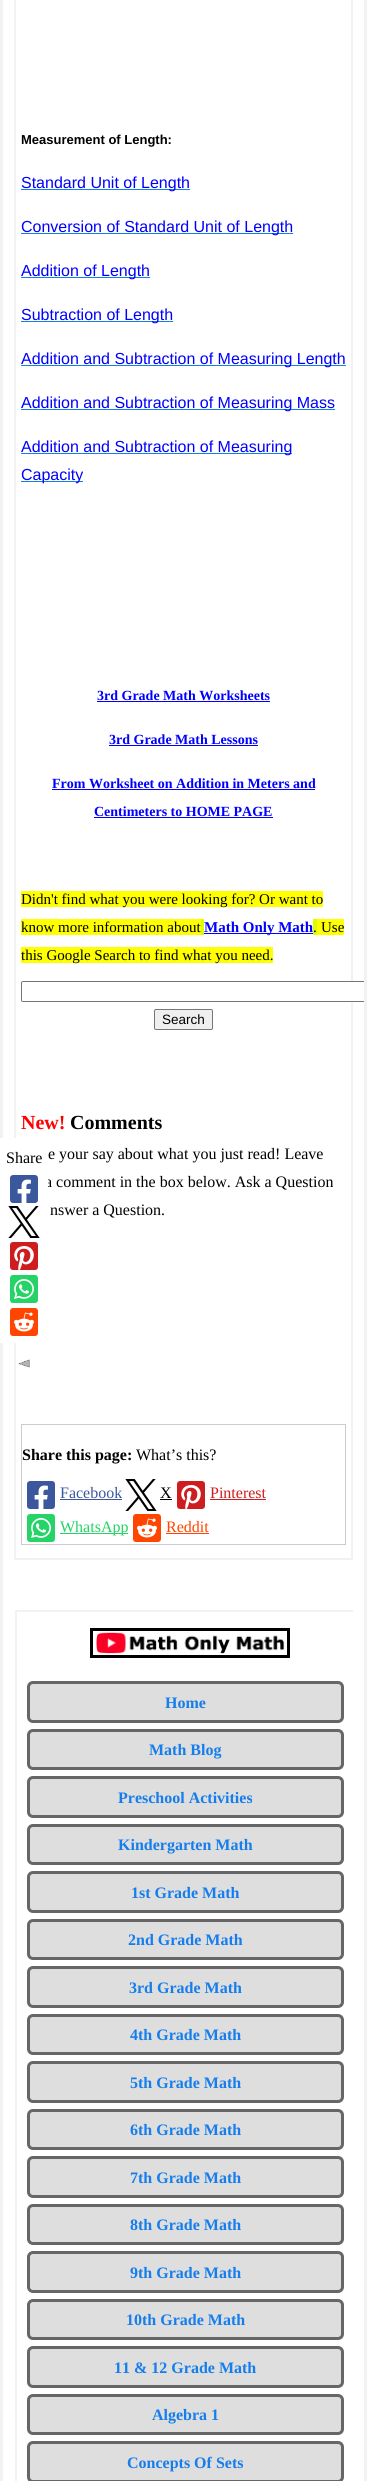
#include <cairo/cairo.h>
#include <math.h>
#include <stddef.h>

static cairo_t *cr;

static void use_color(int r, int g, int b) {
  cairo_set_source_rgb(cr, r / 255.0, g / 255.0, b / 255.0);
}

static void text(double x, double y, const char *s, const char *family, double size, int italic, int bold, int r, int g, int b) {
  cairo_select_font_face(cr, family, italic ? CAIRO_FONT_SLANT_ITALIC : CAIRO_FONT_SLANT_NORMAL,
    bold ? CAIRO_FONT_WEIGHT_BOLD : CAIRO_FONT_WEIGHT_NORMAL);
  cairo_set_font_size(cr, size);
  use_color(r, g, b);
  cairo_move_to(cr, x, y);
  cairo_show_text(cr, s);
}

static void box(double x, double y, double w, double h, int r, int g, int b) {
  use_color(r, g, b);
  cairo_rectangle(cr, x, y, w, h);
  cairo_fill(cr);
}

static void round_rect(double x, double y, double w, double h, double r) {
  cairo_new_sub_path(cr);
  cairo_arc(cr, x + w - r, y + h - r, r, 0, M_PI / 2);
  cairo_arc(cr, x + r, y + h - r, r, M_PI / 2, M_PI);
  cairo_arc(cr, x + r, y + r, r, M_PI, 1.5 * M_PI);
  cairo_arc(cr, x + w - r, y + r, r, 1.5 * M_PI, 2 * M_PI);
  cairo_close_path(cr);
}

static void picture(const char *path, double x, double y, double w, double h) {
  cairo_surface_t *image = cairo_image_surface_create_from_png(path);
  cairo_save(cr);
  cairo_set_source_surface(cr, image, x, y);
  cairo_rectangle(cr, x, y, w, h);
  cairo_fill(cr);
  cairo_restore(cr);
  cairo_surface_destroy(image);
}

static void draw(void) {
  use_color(255, 255, 255);
  cairo_paint(cr);
  box(364, 0, 3, 2481, 242, 242, 242);
  box(0, 0, 3, 2481, 242, 242, 242);
  box(351, 0, 2, 1560, 242, 242, 242);
  box(14, 1558, 339, 2, 242, 242, 242);
  box(14, 0, 2, 1560, 242, 242, 242);
  box(21, 189, 169, 1, 21, 125, 236);
  box(21, 233, 272, 1, 21, 125, 236);
  box(21, 277, 129, 1, 21, 125, 236);
  box(21, 321, 152, 1, 21, 125, 236);
  box(21, 365, 325, 1, 21, 125, 236);
  box(21, 409, 314, 1, 21, 125, 236);
  box(21, 453, 271, 1, 21, 125, 236);
  box(21, 481, 62, 1, 21, 125, 236);
  box(97, 701, 173, 1, 0, 0, 255);
  box(109, 745, 149, 1, 0, 0, 255);
  box(52, 789, 263, 1, 0, 0, 255);
  box(94, 817, 179, 1, 0, 0, 255);
  box(21, 891, 302, 16, 255, 255, 0);
  box(201, 919, 3, 16, 217, 255, 0);
  box(21, 919, 180, 16, 255, 255, 0);
  box(313, 919, 4, 16, 217, 255, 0);
  box(204, 933, 109, 1, 0, 0, 255);
  box(317, 919, 27, 16, 255, 255, 0);
  box(21, 947, 252, 16, 255, 255, 0);
  use_color(255, 255, 255);
  cairo_new_path(cr);
  cairo_move_to(cr, 23, 981);
  cairo_line_to(cr, 364, 981);
  cairo_line_to(cr, 364, 1002);
  cairo_line_to(cr, 23, 1002);
  cairo_curve_to(cr, 22, 1002, 21, 1001, 21, 1000);
  cairo_line_to(cr, 21, 983);
  cairo_curve_to(cr, 21, 982, 22, 981, 23, 981);
  cairo_close_path(cr);
  cairo_fill(cr);
  cairo_save(cr);
  cairo_rectangle(cr, 3, 0, 361, 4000);
  cairo_clip(cr);
  round_rect(21.5, 981.5, 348, 20, 1.5);
  use_color(118, 118, 118);
  cairo_set_line_width(cr, 1);
  cairo_stroke(cr);
  cairo_restore(cr);
  use_color(239, 239, 239);
  round_rect(154.5, 1009.5, 58, 20, 1.5);
  cairo_fill_preserve(cr);
  use_color(118, 118, 118);
  cairo_set_line_width(cr, 1);
  cairo_stroke(cr);
  cairo_rectangle(cr, 21.5, 1424.5, 324, 120);
  use_color(204, 204, 204);
  cairo_stroke(cr);
  picture("img_06.png", 18, 1359, 12, 9);
  picture("img_07.png", 27, 1481, 28, 28);
  box(60, 1499, 62, 1, 59, 87, 157);
  picture("img_08.png", 125, 1479, 32, 32);
  box(160, 1499, 12, 1, 0, 0, 0);
  picture("img_09.png", 177, 1481, 28, 28);
  box(210, 1499, 56, 1, 205, 29, 31);
  picture("img_10.png", 27, 1514, 28, 28);
  box(60, 1533, 68, 1, 37, 211, 102);
  picture("img_11.png", 133, 1514, 28, 28);
  box(166, 1533, 43, 1, 255, 69, 0);
  box(15, 1610, 338, 2, 242, 242, 242);
  box(15, 1610, 2, 871, 242, 242, 242);
  cairo_rectangle(cr, 91.5, 1629.5, 197, 27);
  use_color(0, 0, 0);
  cairo_set_line_width(cr, 3);
  cairo_stroke(cr);
  picture("img_12.png", 96, 1632, 189, 22);
  use_color(222, 222, 222);
  round_rect(28.5, 1682.5, 314, 39, 4.5);
  cairo_fill_preserve(cr);
  use_color(102, 102, 102);
  cairo_stroke(cr);
  use_color(222, 222, 222);
  round_rect(28.5, 1730.5, 314, 38, 4.5);
  cairo_fill_preserve(cr);
  use_color(102, 102, 102);
  cairo_stroke(cr);
  use_color(222, 222, 222);
  round_rect(28.5, 1777.5, 314, 39, 4.5);
  cairo_fill_preserve(cr);
  use_color(102, 102, 102);
  cairo_stroke(cr);
  use_color(222, 222, 222);
  round_rect(28.5, 1825.5, 314, 38, 4.5);
  cairo_fill_preserve(cr);
  use_color(102, 102, 102);
  cairo_stroke(cr);
  use_color(222, 222, 222);
  round_rect(28.5, 1872.5, 314, 39, 4.5);
  cairo_fill_preserve(cr);
  use_color(102, 102, 102);
  cairo_stroke(cr);
  use_color(222, 222, 222);
  round_rect(28.5, 1920.5, 314, 38, 4.5);
  cairo_fill_preserve(cr);
  use_color(102, 102, 102);
  cairo_stroke(cr);
  use_color(222, 222, 222);
  round_rect(28.5, 1967.5, 314, 39, 4.5);
  cairo_fill_preserve(cr);
  use_color(102, 102, 102);
  cairo_stroke(cr);
  use_color(222, 222, 222);
  round_rect(28.5, 2015.5, 314, 38, 4.5);
  cairo_fill_preserve(cr);
  use_color(102, 102, 102);
  cairo_stroke(cr);
  use_color(222, 222, 222);
  round_rect(28.5, 2062.5, 314, 39, 4.5);
  cairo_fill_preserve(cr);
  use_color(102, 102, 102);
  cairo_stroke(cr);
  use_color(222, 222, 222);
  round_rect(28.5, 2110.5, 314, 38, 4.5);
  cairo_fill_preserve(cr);
  use_color(102, 102, 102);
  cairo_stroke(cr);
  use_color(222, 222, 222);
  round_rect(28.5, 2157.5, 314, 39, 4.5);
  cairo_fill_preserve(cr);
  use_color(102, 102, 102);
  cairo_stroke(cr);
  use_color(222, 222, 222);
  round_rect(28.5, 2205.5, 314, 38, 4.5);
  cairo_fill_preserve(cr);
  use_color(102, 102, 102);
  cairo_stroke(cr);
  use_color(222, 222, 222);
  round_rect(28.5, 2252.5, 314, 39, 4.5);
  cairo_fill_preserve(cr);
  use_color(102, 102, 102);
  cairo_stroke(cr);
  use_color(222, 222, 222);
  round_rect(28.5, 2300.5, 314, 38, 4.5);
  cairo_fill_preserve(cr);
  use_color(102, 102, 102);
  cairo_stroke(cr);
  use_color(222, 222, 222);
  round_rect(28.5, 2347.5, 314, 39, 4.5);
  cairo_fill_preserve(cr);
  use_color(102, 102, 102);
  cairo_stroke(cr);
  use_color(222, 222, 222);
  round_rect(28.5, 2395.5, 314, 38, 4.5);
  cairo_fill_preserve(cr);
  use_color(102, 102, 102);
  cairo_stroke(cr);
  use_color(222, 222, 222);
  round_rect(28.5, 2442.5, 314, 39, 4.5);
  cairo_fill_preserve(cr);
  use_color(102, 102, 102);
  cairo_stroke(cr);
  text(21, 144, "Measurement of Length:", "Liberation Sans", 13, 0, 1, 0, 0, 0);
  text(21, 188, "Standard Unit of Length", "Liberation Sans", 16, 0, 0, 0, 0, 255);
  text(21, 232, "Conversion of Standard Unit of Length", "Liberation Sans", 16, 0, 0, 0, 0, 255);
  text(21, 276, "Addition of Length", "Liberation Sans", 16, 0, 0, 0, 0, 255);
  text(21, 320, "Subtraction of Length", "Liberation Sans", 16, 0, 0, 0, 0, 255);
  text(21, 364, "Addition and Subtraction of Measuring Length", "Liberation Sans", 16, 0, 0, 0, 0, 255);
  text(21, 408, "Addition and Subtraction of Measuring Mass", "Liberation Sans", 16, 0, 0, 0, 0, 255);
  text(21, 452, "Addition and Subtraction of Measuring", "Liberation Sans", 16, 0, 0, 0, 0, 255);
  text(21, 480, "Capacity", "Liberation Sans", 16, 0, 0, 0, 0, 255);
  text(97, 700, "3rd Grade Math Worksheets", "Liberation Serif", 14, 0, 1, 0, 0, 255);
  text(109, 744, "3rd Grade Math Lessons", "Liberation Serif", 14, 0, 1, 0, 0, 255);
  text(52, 788, "From Worksheet on Addition in Meters and", "Liberation Serif", 14, 0, 1, 0, 0, 255);
  text(94, 816, "Centimeters to HOME PAGE", "Liberation Serif", 14, 0, 1, 0, 0, 255);
  text(21, 904, "Didn't find what you were looking for? Or want to", "Liberation Serif", 15, 0, 0, 0, 0, 0);
  text(21, 932, "know more information about", "Liberation Serif", 15, 0, 0, 0, 0, 0);
  text(204, 932, "Math Only Math", "Liberation Serif", 15, 0, 1, 0, 0, 255);
  text(313, 932, ".", "Liberation Serif", 15, 0, 0, 0, 0, 0);
  text(321, 932, "Use", "Liberation Serif", 15, 0, 0, 0, 0, 0);
  text(21, 960, "this Google Search to find what you need.", "Liberation Serif", 15, 0, 0, 0, 0, 0);
  text(162, 1024, "Search", "Liberation Sans", 13.5, 0, 0, 0, 0, 0);
  text(21, 1129, "New!", "Liberation Serif", 20, 0, 1, 255, 0, 0);
  text(70, 1129, "Comments", "Liberation Serif", 20, 0, 1, 0, 0, 0);
  text(48, 1159, "e your say about what you just read! Leave", "Liberation Serif", 16, 0, 0, 0, 0, 0);
  text(45, 1187, "a comment in the box below. Ask a Question", "Liberation Serif", 16, 0, 0, 0, 0, 0);
  text(50, 1215, "nswer a Question.", "Liberation Serif", 16, 0, 0, 0, 0, 0);
  use_color(255, 255, 255);
  cairo_new_path(cr);
  cairo_move_to(cr, 0, 1138);
  cairo_line_to(cr, 43, 1138);
  cairo_curve_to(cr, 46, 1138, 48, 1140, 48, 1143);
  cairo_line_to(cr, 48, 1338);
  cairo_curve_to(cr, 48, 1341, 46, 1343, 43, 1343);
  cairo_line_to(cr, 0, 1343);
  cairo_close_path(cr);
  cairo_fill(cr);
  text(6, 1163, "Share", "Liberation Serif", 16, 0, 0, 0, 0, 0);
  picture("img_01.png", 10, 1175, 28, 28);
  picture("img_02.png", 8, 1206, 32, 32);
  picture("img_03.png", 10, 1242, 28, 28);
  picture("img_04.png", 10, 1275, 28, 28);
  picture("img_05.png", 10, 1308, 28, 28);
  text(22, 1460, "Share this page:", "Liberation Serif", 16, 0, 1, 0, 0, 0);
  text(136, 1460, "What’s this?", "Liberation Serif", 16, 0, 0, 0, 0, 0);
  text(60, 1498, "Facebook", "Liberation Serif", 16, 0, 0, 59, 87, 157);
  text(160, 1498, "X", "Liberation Serif", 16, 0, 0, 0, 0, 0);
  text(210, 1498, "Pinterest", "Liberation Serif", 16, 0, 0, 205, 29, 31);
  text(60, 1532, "WhatsApp", "Liberation Serif", 16, 0, 0, 37, 211, 102);
  text(166, 1532, "Reddit", "Liberation Serif", 16, 0, 0, 255, 69, 0);
  text(165, 1708, "Home", "Liberation Serif", 16, 0, 1, 21, 125, 236);
  text(149, 1755, "Math Blog", "Liberation Serif", 16, 0, 1, 21, 125, 236);
  text(118, 1803, "Preschool Activities", "Liberation Serif", 16, 0, 1, 21, 125, 236);
  text(118, 1850, "Kindergarten Math", "Liberation Serif", 16, 0, 1, 21, 125, 236);
  text(131, 1898, "1st Grade Math", "Liberation Serif", 16, 0, 1, 21, 125, 236);
  text(128, 1945, "2nd Grade Math", "Liberation Serif", 16, 0, 1, 21, 125, 236);
  text(129, 1993, "3rd Grade Math", "Liberation Serif", 16, 0, 1, 21, 125, 236);
  text(130, 2040, "4th Grade Math", "Liberation Serif", 16, 0, 1, 21, 125, 236);
  text(130, 2088, "5th Grade Math", "Liberation Serif", 16, 0, 1, 21, 125, 236);
  text(130, 2135, "6th Grade Math", "Liberation Serif", 16, 0, 1, 21, 125, 236);
  text(130, 2183, "7th Grade Math", "Liberation Serif", 16, 0, 1, 21, 125, 236);
  text(130, 2230, "8th Grade Math", "Liberation Serif", 16, 0, 1, 21, 125, 236);
  text(130, 2278, "9th Grade Math", "Liberation Serif", 16, 0, 1, 21, 125, 236);
  text(126, 2325, "10th Grade Math", "Liberation Serif", 16, 0, 1, 21, 125, 236);
  text(114, 2373, "11 & 12 Grade Math", "Liberation Serif", 16, 0, 1, 21, 125, 236);
  text(152, 2420, "Algebra 1", "Liberation Serif", 16, 0, 1, 21, 125, 236);
  text(127, 2468, "Concepts Of Sets", "Liberation Serif", 16, 0, 1, 21, 125, 236);
}

int main(void) {
  cairo_surface_t *surface = cairo_image_surface_create(CAIRO_FORMAT_RGB24, 367, 2481);
  cr = cairo_create(surface);
  cairo_font_options_t *options = cairo_font_options_create();
  cairo_font_options_set_hint_metrics(options, CAIRO_HINT_METRICS_OFF);
  cairo_font_options_set_hint_style(options, CAIRO_HINT_STYLE_NONE);
  cairo_set_font_options(cr, options);
  cairo_set_miter_limit(cr, 4);
  draw();
  cairo_surface_write_to_png(surface, "out.png");
  cairo_font_options_destroy(options);
  cairo_destroy(cr);
  cairo_surface_destroy(surface);
  return 0;
}
